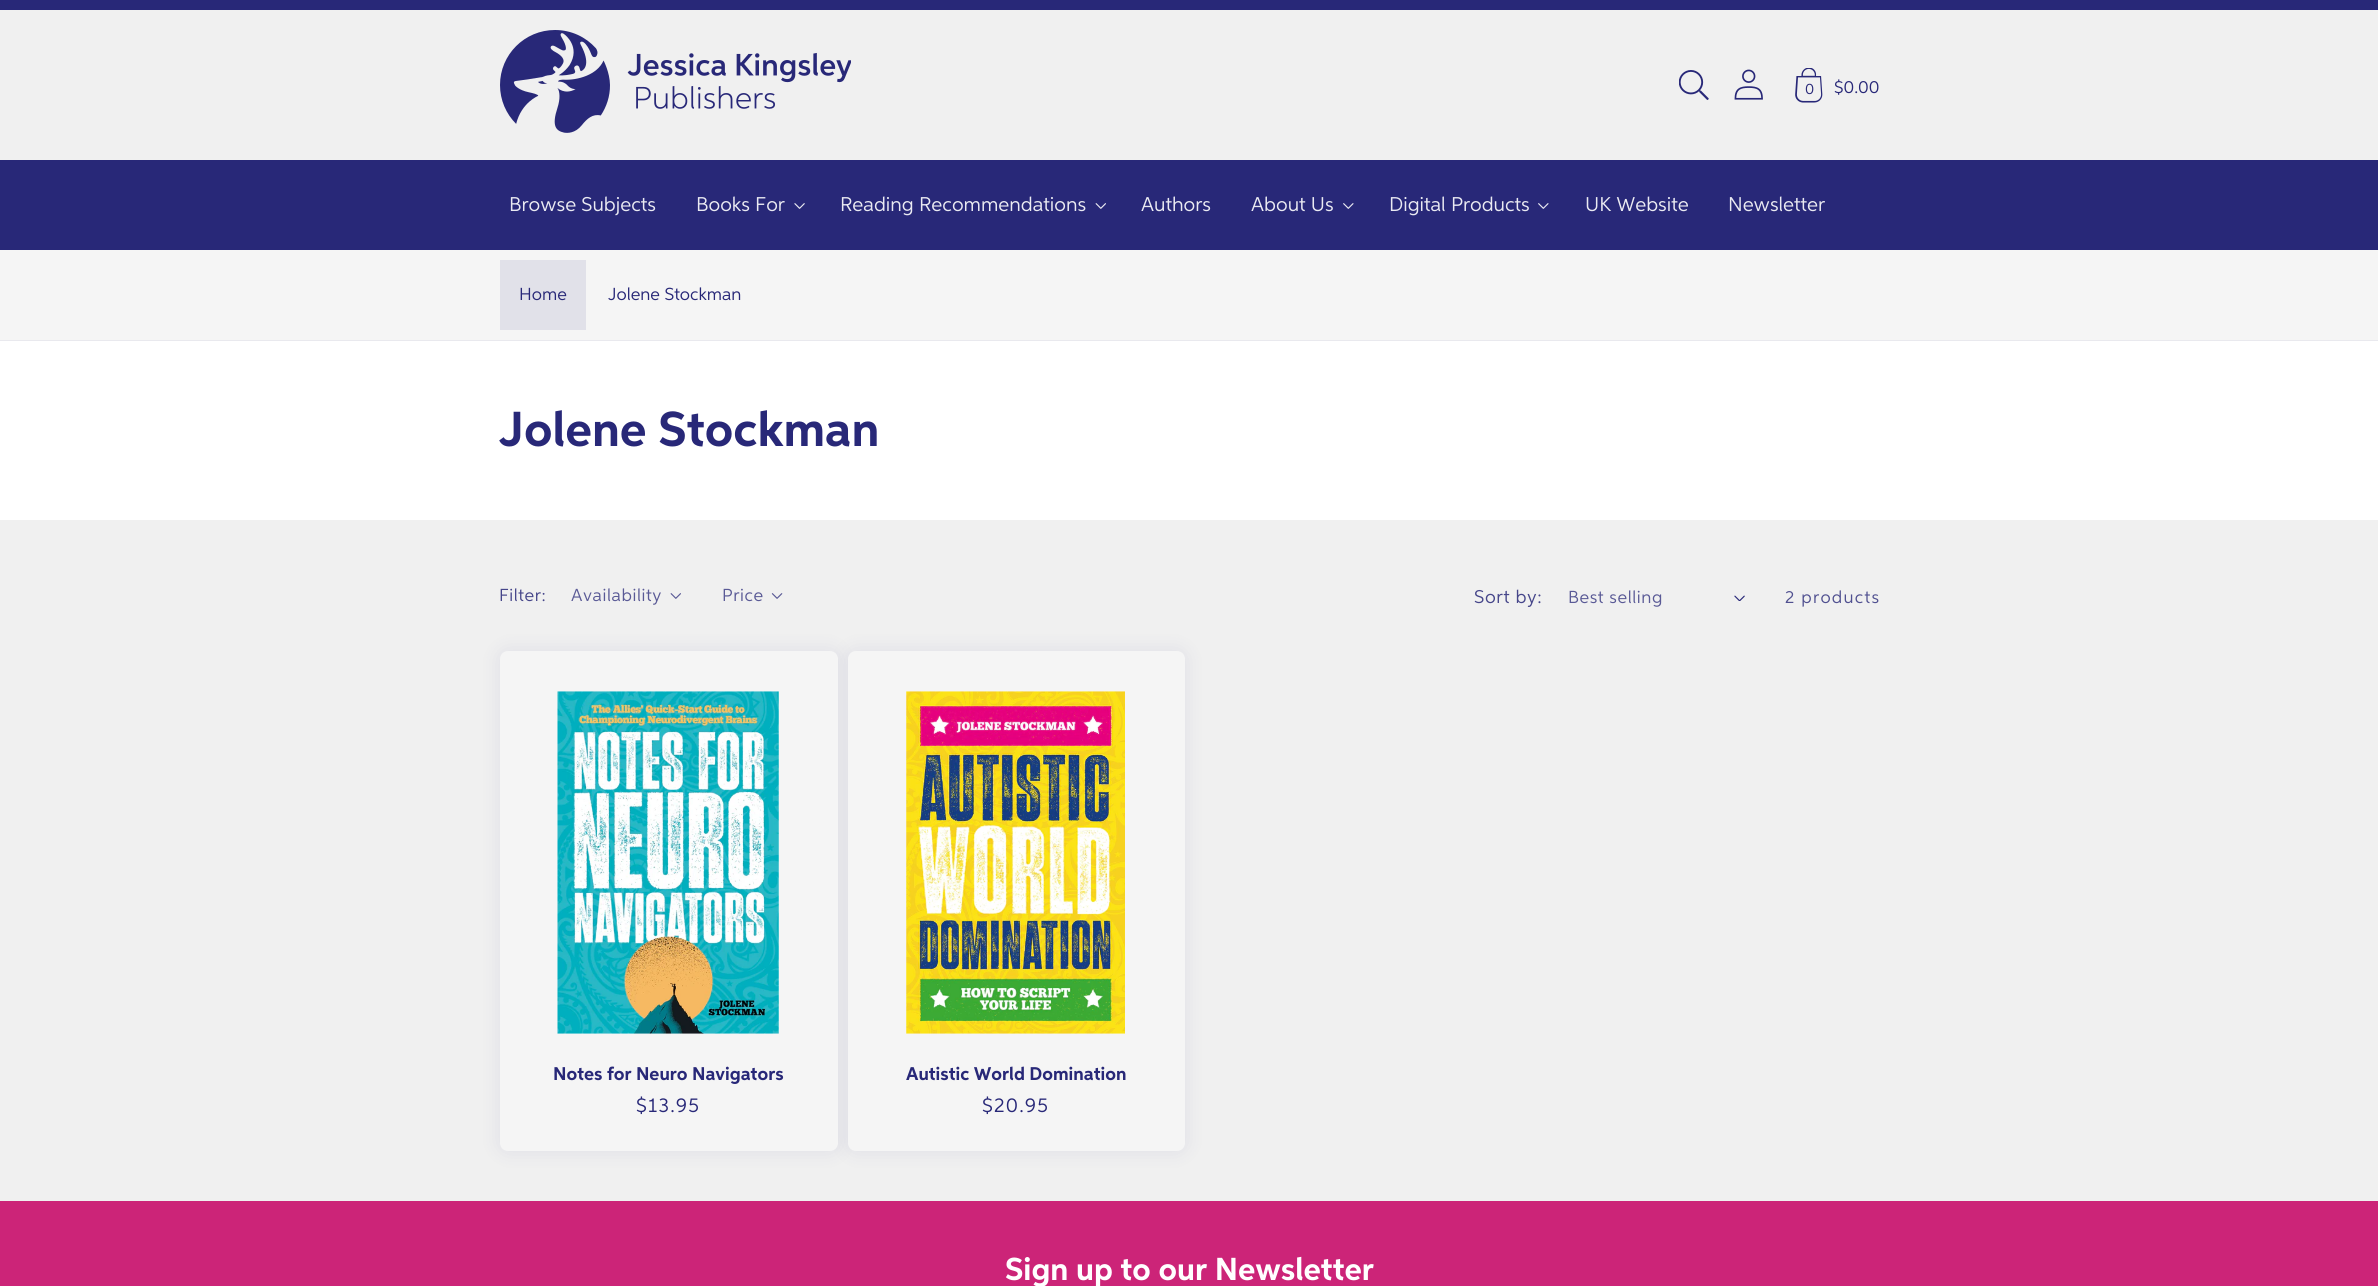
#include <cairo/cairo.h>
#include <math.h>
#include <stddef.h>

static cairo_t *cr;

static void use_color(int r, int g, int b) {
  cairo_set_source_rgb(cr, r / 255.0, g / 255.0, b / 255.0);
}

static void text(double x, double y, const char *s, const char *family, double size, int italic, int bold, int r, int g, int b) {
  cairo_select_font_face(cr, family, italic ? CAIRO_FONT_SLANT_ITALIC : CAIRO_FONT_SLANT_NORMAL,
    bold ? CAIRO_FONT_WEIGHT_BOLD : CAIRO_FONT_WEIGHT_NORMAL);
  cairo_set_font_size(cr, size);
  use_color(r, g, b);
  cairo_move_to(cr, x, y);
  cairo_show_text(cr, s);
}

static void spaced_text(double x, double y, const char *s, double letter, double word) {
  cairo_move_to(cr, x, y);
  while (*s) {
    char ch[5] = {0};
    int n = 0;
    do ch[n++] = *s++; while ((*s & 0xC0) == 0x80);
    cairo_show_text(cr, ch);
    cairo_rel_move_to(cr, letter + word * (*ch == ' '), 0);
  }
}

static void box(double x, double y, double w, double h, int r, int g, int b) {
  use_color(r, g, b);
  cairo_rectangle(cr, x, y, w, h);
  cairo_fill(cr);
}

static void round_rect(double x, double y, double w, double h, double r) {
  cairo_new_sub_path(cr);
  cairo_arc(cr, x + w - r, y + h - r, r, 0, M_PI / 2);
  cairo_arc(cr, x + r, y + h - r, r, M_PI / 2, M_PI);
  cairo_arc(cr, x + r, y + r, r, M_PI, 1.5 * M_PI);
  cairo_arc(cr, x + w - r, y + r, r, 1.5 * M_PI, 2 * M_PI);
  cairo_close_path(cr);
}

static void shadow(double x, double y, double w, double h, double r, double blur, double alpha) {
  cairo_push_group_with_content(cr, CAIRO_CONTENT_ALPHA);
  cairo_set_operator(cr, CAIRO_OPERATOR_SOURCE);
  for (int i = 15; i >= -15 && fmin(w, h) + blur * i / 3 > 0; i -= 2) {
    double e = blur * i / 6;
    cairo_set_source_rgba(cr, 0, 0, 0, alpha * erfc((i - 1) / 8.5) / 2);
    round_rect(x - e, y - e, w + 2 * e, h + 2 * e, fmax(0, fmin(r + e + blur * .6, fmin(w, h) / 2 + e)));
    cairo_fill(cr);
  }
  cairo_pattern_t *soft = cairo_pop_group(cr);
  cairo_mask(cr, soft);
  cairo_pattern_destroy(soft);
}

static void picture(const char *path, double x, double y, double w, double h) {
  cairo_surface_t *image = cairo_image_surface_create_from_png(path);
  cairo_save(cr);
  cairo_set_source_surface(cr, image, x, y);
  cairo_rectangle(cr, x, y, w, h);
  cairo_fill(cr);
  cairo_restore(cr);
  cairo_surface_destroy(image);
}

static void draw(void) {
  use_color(240, 240, 240);
  cairo_paint(cr);
  box(0, 0, 2378, 10, 40, 40, 120);
  picture("img_01.png", 500, 30, 351, 103);
  picture("img_02.png", 1679, 70, 30, 30);
  picture("img_03.png", 1734, 69, 29, 31);
  picture("img_04.png", 1795, 68, 28, 35);
  box(0, 160, 2378, 90, 40, 40, 120);
  picture("img_05.png", 794, 203, 11, 6);
  picture("img_06.png", 1095, 203, 11, 6);
  picture("img_07.png", 1343, 203, 11, 6);
  picture("img_07.png", 1538, 203, 11, 6);
  box(0, 250, 2378, 90, 245, 245, 245);
  box(0, 340, 2378, 1, 233, 233, 238);
  box(500, 260, 86, 70, 225, 225, 233);
  box(0, 341, 2378, 179, 255, 255, 255);
  picture("img_08.png", 670, 593, 11, 6);
  picture("img_09.png", 771, 593, 12, 6);
  picture("img_10.png", 1734, 595, 11, 6);
  use_color(40, 40, 120);
  shadow(500, 651, 338, 500, 8, 9.5, 0.1);
  shadow(848, 651, 337, 500, 8, 9.5, 0.1);
  use_color(245, 245, 245);
  round_rect(500, 651, 338, 500, 8);
  cairo_fill(cr);
  picture("img_11.png", 557, 691, 222, 343);
  round_rect(848, 651, 337, 500, 8);
  cairo_fill(cr);
  picture("img_12.png", 906, 691, 219, 343);
  box(0, 1201, 2378, 85, 204, 36, 120);
  text(1805, 94, "0", "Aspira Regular", 15, 0, 0, 40, 40, 120);
  text(1834, 93, "$0.00", "Aspira Regular", 17.5, 0, 0, 40, 40, 120);
  text(509, 211, "Browse Subjects", "Aspira Regular", 20, 0, 0, 234, 234, 242);
  text(696, 211, "Books For", "Aspira Regular", 20, 0, 0, 234, 234, 242);
  text(840, 211, "Reading Recommendations", "Aspira Regular", 20, 0, 0, 234, 234, 242);
  text(1141, 211, "Authors", "Aspira Regular", 20, 0, 0, 234, 234, 242);
  text(1251, 211, "About Us", "Aspira Regular", 20, 0, 0, 234, 234, 242);
  text(1389, 211, "Digital Products", "Aspira Regular", 20, 0, 0, 234, 234, 242);
  text(1585, 211, "UK Website", "Aspira Regular", 20, 0, 0, 234, 234, 242);
  text(1728, 211, "Newsletter", "Aspira Regular", 20, 0, 0, 234, 234, 242);
  text(519, 300, "Home", "Aspira Regular", 17.5, 0, 0, 40, 40, 120);
  text(608, 300, "Jolene Stockman", "Aspira Regular", 17.5, 0, 0, 40, 40, 120);
  text(499, 446, "Jolene Stockman", "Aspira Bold", 49.25, 0, 1, 40, 40, 120);
  cairo_select_font_face(cr, "Aspira Regular", CAIRO_FONT_SLANT_NORMAL, CAIRO_FONT_WEIGHT_NORMAL);
  cairo_set_font_size(cr, 17.5);
  use_color(70, 70, 138);
  spaced_text(499, 601, "Filter:", 0.6, 0);
  use_color(90, 90, 150);
  spaced_text(571, 601, "Availability", 0.6, 0);
  spaced_text(722, 601, "Price", 0.6, 0);
  cairo_set_font_size(cr, 18.5);
  use_color(70, 70, 138);
  spaced_text(1474, 603, "Sort by:", 0.6, 0);
  cairo_set_font_size(cr, 17.5);
  use_color(90, 90, 150);
  spaced_text(1568, 603, "Best selling", 0.6, 0);
  use_color(80, 80, 144);
  spaced_text(1785, 603, "2 products", 1.25, 0);
  text(553, 1080, "Notes for Neuro Navigators", "Aspira Bold", 18.5, 0, 1, 40, 40, 120);
  cairo_select_font_face(cr, "Aspira Regular", CAIRO_FONT_SLANT_NORMAL, CAIRO_FONT_WEIGHT_NORMAL);
  cairo_set_font_size(cr, 20);
  spaced_text(636, 1112, "$13.95", 1.25, 0);
  text(906, 1080, "Autistic World Domination", "Aspira Bold", 18.5, 0, 1, 40, 40, 120);
  cairo_select_font_face(cr, "Aspira Regular", CAIRO_FONT_SLANT_NORMAL, CAIRO_FONT_WEIGHT_NORMAL);
  cairo_set_font_size(cr, 20);
  spaced_text(982, 1112, "$20.95", 1.25, 0);
  text(1005, 1280, "Sign up to our Newsletter", "Aspira Bold", 31.9, 0, 1, 255, 255, 255);
}

int main(void) {
  cairo_surface_t *surface = cairo_image_surface_create(CAIRO_FORMAT_RGB24, 2378, 1286);
  cr = cairo_create(surface);
  cairo_font_options_t *options = cairo_font_options_create();
  cairo_font_options_set_hint_metrics(options, CAIRO_HINT_METRICS_OFF);
  cairo_font_options_set_hint_style(options, CAIRO_HINT_STYLE_NONE);
  cairo_set_font_options(cr, options);
  cairo_set_miter_limit(cr, 4);
  draw();
  cairo_surface_write_to_png(surface, "out.png");
  cairo_font_options_destroy(options);
  cairo_destroy(cr);
  cairo_surface_destroy(surface);
  return 0;
}
